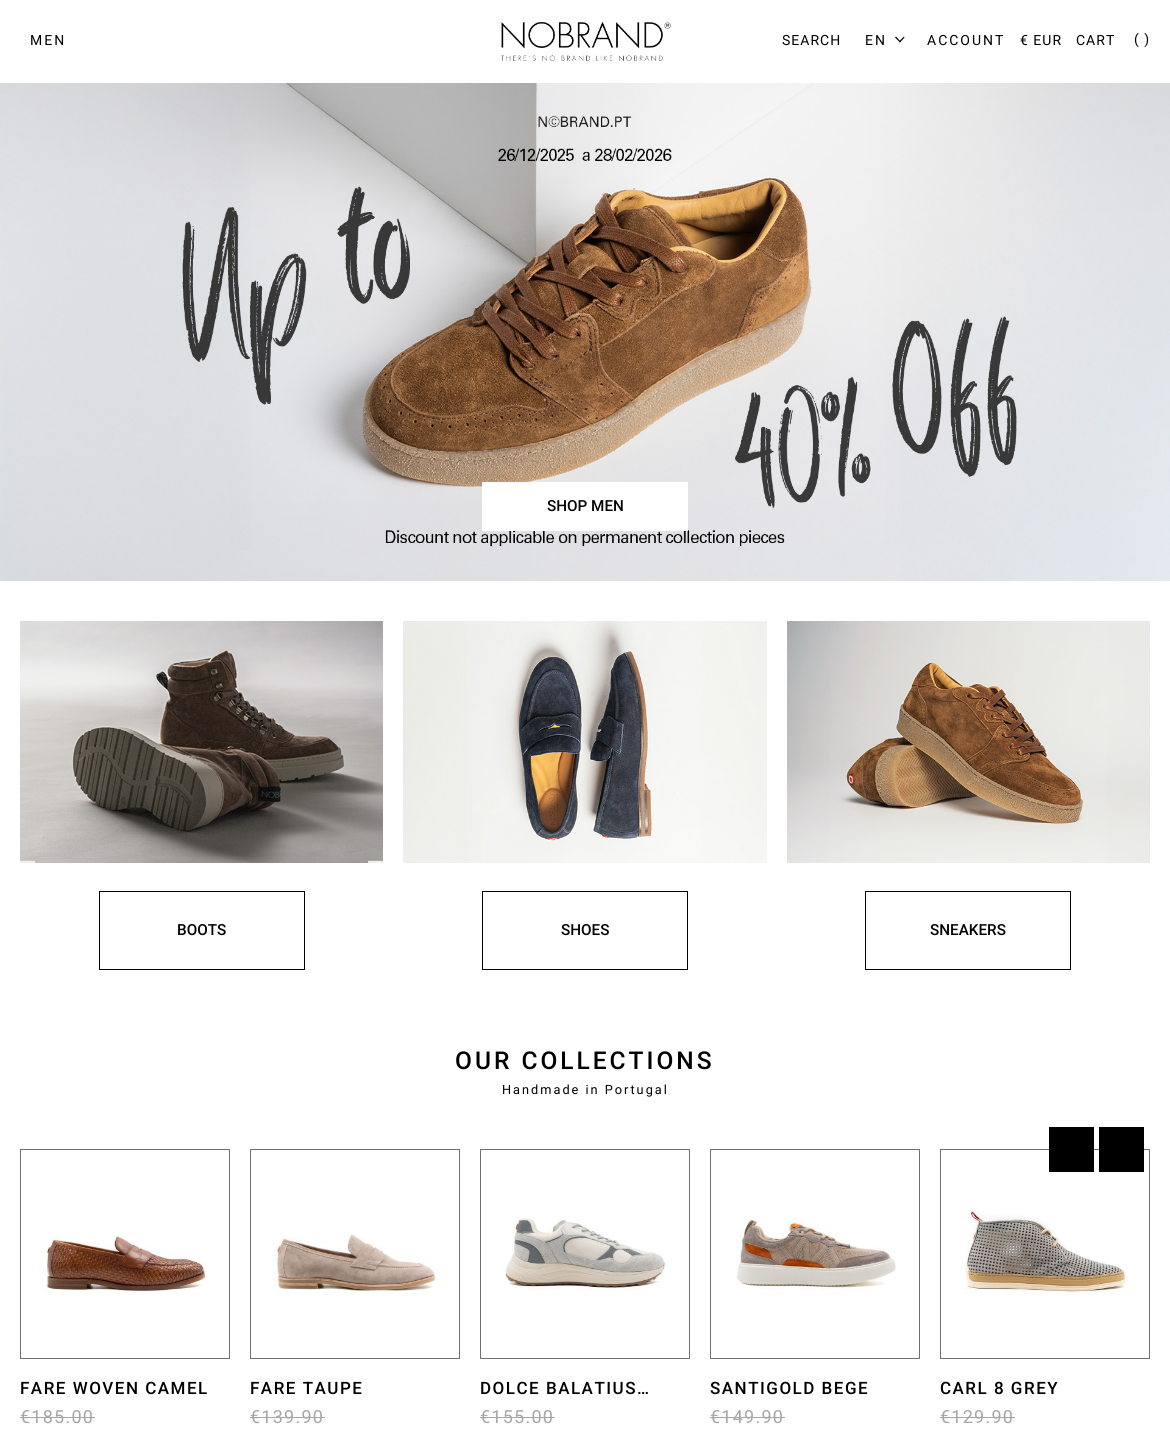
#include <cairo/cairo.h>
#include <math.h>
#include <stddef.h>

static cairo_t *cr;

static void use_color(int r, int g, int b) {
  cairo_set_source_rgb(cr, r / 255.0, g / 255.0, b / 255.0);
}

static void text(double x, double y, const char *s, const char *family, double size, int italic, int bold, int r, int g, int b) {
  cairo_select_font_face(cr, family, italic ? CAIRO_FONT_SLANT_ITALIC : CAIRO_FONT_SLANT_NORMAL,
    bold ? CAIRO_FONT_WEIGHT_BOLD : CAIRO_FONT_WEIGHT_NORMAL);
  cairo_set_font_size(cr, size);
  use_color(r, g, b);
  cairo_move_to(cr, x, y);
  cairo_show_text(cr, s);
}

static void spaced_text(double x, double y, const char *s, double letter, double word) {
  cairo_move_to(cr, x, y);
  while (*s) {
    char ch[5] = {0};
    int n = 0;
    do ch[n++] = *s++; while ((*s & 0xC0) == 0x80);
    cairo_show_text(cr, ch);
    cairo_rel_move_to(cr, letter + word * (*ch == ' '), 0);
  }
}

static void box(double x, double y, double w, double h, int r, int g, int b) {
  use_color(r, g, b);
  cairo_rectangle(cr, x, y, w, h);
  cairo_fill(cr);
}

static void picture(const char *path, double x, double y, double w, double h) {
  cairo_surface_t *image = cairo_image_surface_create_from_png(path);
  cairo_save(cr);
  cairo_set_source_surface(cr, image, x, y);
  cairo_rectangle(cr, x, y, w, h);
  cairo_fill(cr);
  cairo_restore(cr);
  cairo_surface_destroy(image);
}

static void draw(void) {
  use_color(255, 255, 255);
  cairo_paint(cr);
  picture("img_01.png", 501, 22, 170, 39);
  use_color(0, 0, 0);
  cairo_new_path(cr);
  cairo_move_to(cr, 895, 37.5);
  cairo_line_to(cr, 896, 36.5);
  cairo_line_to(cr, 900.5, 41.5);
  cairo_line_to(cr, 900, 42.5);
  cairo_close_path(cr);
  cairo_fill(cr);
  cairo_new_path(cr);
  cairo_move_to(cr, 904, 36.5);
  cairo_line_to(cr, 904.5, 37.5);
  cairo_line_to(cr, 900, 42.5);
  cairo_line_to(cr, 899, 41.5);
  cairo_close_path(cr);
  cairo_fill(cr);
  picture("img_02.png", 0, 83, 1170, 498);
  box(482, 482, 206, 49, 255, 255, 255);
  picture("img_03.png", 20, 621, 363, 242);
  cairo_rectangle(cr, 99.5, 891.5, 205, 78);
  use_color(0, 0, 0);
  cairo_set_line_width(cr, 1);
  cairo_stroke(cr);
  picture("img_04.png", 403, 621, 364, 242);
  cairo_rectangle(cr, 482.5, 891.5, 205, 78);
  cairo_stroke(cr);
  picture("img_05.png", 787, 621, 363, 242);
  cairo_rectangle(cr, 865.5, 891.5, 205, 78);
  cairo_stroke(cr);
  cairo_rectangle(cr, 940.5, 1149.5, 209, 209);
  use_color(112, 112, 112);
  cairo_stroke(cr);
  box(1049, 1127, 45, 45, 0, 0, 0);
  box(1099, 1127, 45, 45, 0, 0, 0);
  cairo_rectangle(cr, 20.5, 1149.5, 209, 209);
  use_color(112, 112, 112);
  cairo_stroke(cr);
  picture("img_06.png", 40, 1236, 168, 59);
  box(20, 1417, 75, 1, 166, 166, 166);
  cairo_rectangle(cr, 250.5, 1149.5, 209, 209);
  use_color(112, 112, 112);
  cairo_stroke(cr);
  picture("img_07.png", 271, 1227, 167, 68);
  box(250, 1417, 75, 1, 166, 166, 166);
  cairo_rectangle(cr, 480.5, 1149.5, 209, 209);
  use_color(112, 112, 112);
  cairo_stroke(cr);
  picture("img_08.png", 505, 1217, 160, 73);
  box(480, 1417, 75, 1, 166, 166, 166);
  cairo_rectangle(cr, 710.5, 1149.5, 209, 209);
  use_color(112, 112, 112);
  cairo_stroke(cr);
  picture("img_09.png", 735, 1217, 161, 73);
  box(710, 1417, 75, 1, 166, 166, 166);
  picture("img_10.png", 962, 1207, 166, 88);
  box(940, 1417, 75, 1, 166, 166, 166);
  cairo_select_font_face(cr, "Roboto", CAIRO_FONT_SLANT_NORMAL, CAIRO_FONT_WEIGHT_NORMAL);
  cairo_set_font_size(cr, 14);
  use_color(0, 0, 0);
  spaced_text(30, 45, "MEN", 2, 0);
  spaced_text(782, 45, "SEARCH", 1, 0);
  spaced_text(865, 45, "EN", 2, 0);
  spaced_text(927, 45, "ACCOUNT", 2, 0);
  spaced_text(1020, 45, "€ EUR", 1, 0);
  spaced_text(1076, 45, "CART", 1, 0);
  spaced_text(1134, 44, "( )", 1, 0);
  text(547, 511, "SHOP MEN", "Roboto Medium", 15.25, 0, 0, 0, 0, 0);
  text(177, 935, "BOOTS", "Roboto Medium", 15.25, 0, 0, 0, 0, 0);
  text(561, 935, "SHOES", "Roboto Medium", 15.25, 0, 0, 0, 0, 0);
  text(930, 935, "SNEAKERS", "Roboto Medium", 15.25, 0, 0, 0, 0, 0);
  cairo_set_font_size(cr, 24.5);
  spaced_text(455, 1069, "OUR COLLECTIONS", 3, 0);
  cairo_select_font_face(cr, "Roboto", CAIRO_FONT_SLANT_NORMAL, CAIRO_FONT_WEIGHT_NORMAL);
  cairo_set_font_size(cr, 12.75);
  spaced_text(502, 1094, "Handmade in Portugal", 2, 0);
  cairo_select_font_face(cr, "Roboto Medium", CAIRO_FONT_SLANT_NORMAL, CAIRO_FONT_WEIGHT_NORMAL);
  cairo_set_font_size(cr, 17);
  spaced_text(20, 1394, "FARE WOVEN CAMEL", 1.5, 0);
  cairo_select_font_face(cr, "Roboto", CAIRO_FONT_SLANT_NORMAL, CAIRO_FONT_WEIGHT_NORMAL);
  cairo_set_font_size(cr, 18);
  use_color(166, 166, 166);
  spaced_text(20, 1423, "€185.00", 1.25, 0);
  cairo_select_font_face(cr, "Roboto Medium", CAIRO_FONT_SLANT_NORMAL, CAIRO_FONT_WEIGHT_NORMAL);
  cairo_set_font_size(cr, 17);
  use_color(0, 0, 0);
  spaced_text(250, 1394, "FARE TAUPE", 1.5, 0);
  cairo_select_font_face(cr, "Roboto", CAIRO_FONT_SLANT_NORMAL, CAIRO_FONT_WEIGHT_NORMAL);
  cairo_set_font_size(cr, 18);
  use_color(166, 166, 166);
  spaced_text(250, 1423, "€139.90", 1.25, 0);
  cairo_select_font_face(cr, "Roboto Medium", CAIRO_FONT_SLANT_NORMAL, CAIRO_FONT_WEIGHT_NORMAL);
  cairo_set_font_size(cr, 17);
  use_color(0, 0, 0);
  spaced_text(480, 1394, "DOLCE BALATIUS…", 1.5, 0);
  cairo_select_font_face(cr, "Roboto", CAIRO_FONT_SLANT_NORMAL, CAIRO_FONT_WEIGHT_NORMAL);
  cairo_set_font_size(cr, 18);
  use_color(166, 166, 166);
  spaced_text(480, 1423, "€155.00", 1.25, 0);
  cairo_select_font_face(cr, "Roboto Medium", CAIRO_FONT_SLANT_NORMAL, CAIRO_FONT_WEIGHT_NORMAL);
  cairo_set_font_size(cr, 17);
  use_color(0, 0, 0);
  spaced_text(710, 1394, "SANTIGOLD BEGE", 1.5, 0);
  cairo_select_font_face(cr, "Roboto", CAIRO_FONT_SLANT_NORMAL, CAIRO_FONT_WEIGHT_NORMAL);
  cairo_set_font_size(cr, 18);
  use_color(166, 166, 166);
  spaced_text(710, 1423, "€149.90", 1.25, 0);
  cairo_select_font_face(cr, "Roboto Medium", CAIRO_FONT_SLANT_NORMAL, CAIRO_FONT_WEIGHT_NORMAL);
  cairo_set_font_size(cr, 17);
  use_color(0, 0, 0);
  spaced_text(940, 1394, "CARL 8 GREY", 1.5, 0);
  cairo_select_font_face(cr, "Roboto", CAIRO_FONT_SLANT_NORMAL, CAIRO_FONT_WEIGHT_NORMAL);
  cairo_set_font_size(cr, 18);
  use_color(166, 166, 166);
  spaced_text(940, 1423, "€129.90", 1.25, 0);
}

int main(void) {
  cairo_surface_t *surface = cairo_image_surface_create(CAIRO_FORMAT_RGB24, 1170, 1434);
  cr = cairo_create(surface);
  cairo_font_options_t *options = cairo_font_options_create();
  cairo_font_options_set_hint_metrics(options, CAIRO_HINT_METRICS_OFF);
  cairo_font_options_set_hint_style(options, CAIRO_HINT_STYLE_NONE);
  cairo_set_font_options(cr, options);
  cairo_set_miter_limit(cr, 4);
  draw();
  cairo_surface_write_to_png(surface, "out.png");
  cairo_font_options_destroy(options);
  cairo_destroy(cr);
  cairo_surface_destroy(surface);
  return 0;
}
